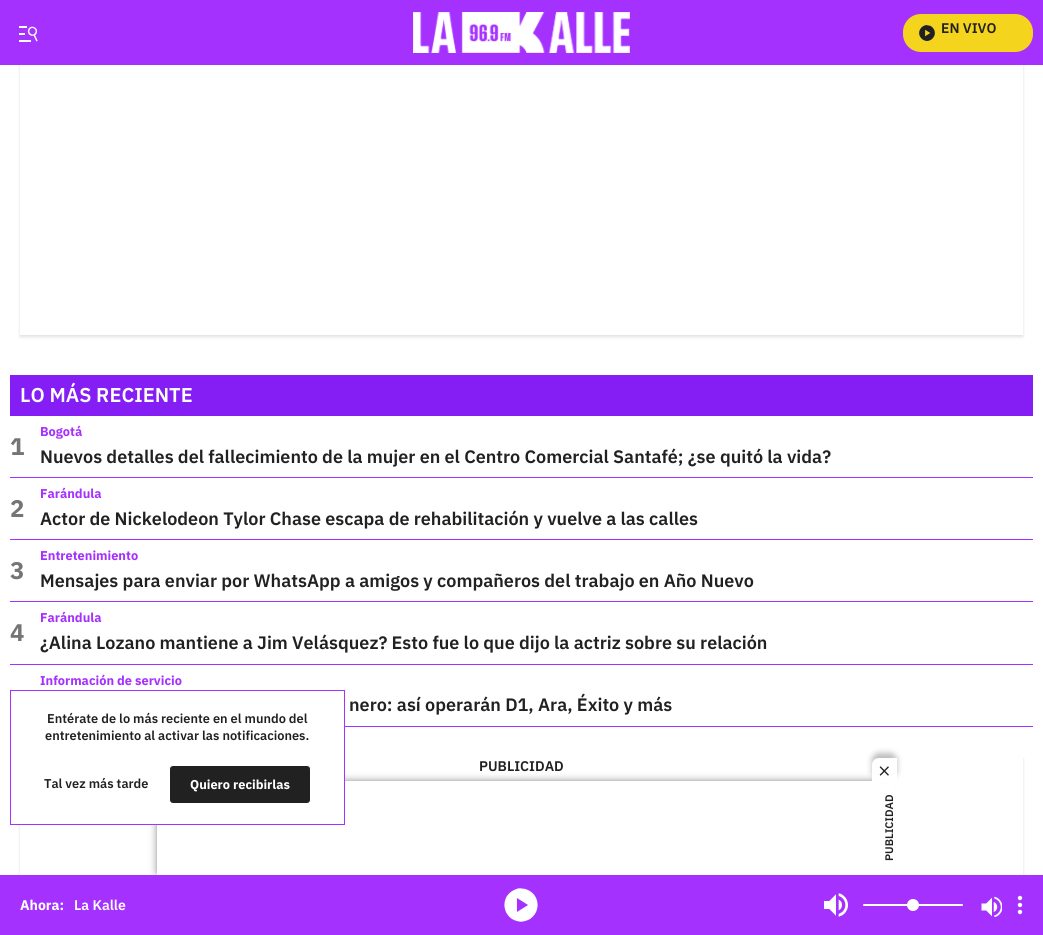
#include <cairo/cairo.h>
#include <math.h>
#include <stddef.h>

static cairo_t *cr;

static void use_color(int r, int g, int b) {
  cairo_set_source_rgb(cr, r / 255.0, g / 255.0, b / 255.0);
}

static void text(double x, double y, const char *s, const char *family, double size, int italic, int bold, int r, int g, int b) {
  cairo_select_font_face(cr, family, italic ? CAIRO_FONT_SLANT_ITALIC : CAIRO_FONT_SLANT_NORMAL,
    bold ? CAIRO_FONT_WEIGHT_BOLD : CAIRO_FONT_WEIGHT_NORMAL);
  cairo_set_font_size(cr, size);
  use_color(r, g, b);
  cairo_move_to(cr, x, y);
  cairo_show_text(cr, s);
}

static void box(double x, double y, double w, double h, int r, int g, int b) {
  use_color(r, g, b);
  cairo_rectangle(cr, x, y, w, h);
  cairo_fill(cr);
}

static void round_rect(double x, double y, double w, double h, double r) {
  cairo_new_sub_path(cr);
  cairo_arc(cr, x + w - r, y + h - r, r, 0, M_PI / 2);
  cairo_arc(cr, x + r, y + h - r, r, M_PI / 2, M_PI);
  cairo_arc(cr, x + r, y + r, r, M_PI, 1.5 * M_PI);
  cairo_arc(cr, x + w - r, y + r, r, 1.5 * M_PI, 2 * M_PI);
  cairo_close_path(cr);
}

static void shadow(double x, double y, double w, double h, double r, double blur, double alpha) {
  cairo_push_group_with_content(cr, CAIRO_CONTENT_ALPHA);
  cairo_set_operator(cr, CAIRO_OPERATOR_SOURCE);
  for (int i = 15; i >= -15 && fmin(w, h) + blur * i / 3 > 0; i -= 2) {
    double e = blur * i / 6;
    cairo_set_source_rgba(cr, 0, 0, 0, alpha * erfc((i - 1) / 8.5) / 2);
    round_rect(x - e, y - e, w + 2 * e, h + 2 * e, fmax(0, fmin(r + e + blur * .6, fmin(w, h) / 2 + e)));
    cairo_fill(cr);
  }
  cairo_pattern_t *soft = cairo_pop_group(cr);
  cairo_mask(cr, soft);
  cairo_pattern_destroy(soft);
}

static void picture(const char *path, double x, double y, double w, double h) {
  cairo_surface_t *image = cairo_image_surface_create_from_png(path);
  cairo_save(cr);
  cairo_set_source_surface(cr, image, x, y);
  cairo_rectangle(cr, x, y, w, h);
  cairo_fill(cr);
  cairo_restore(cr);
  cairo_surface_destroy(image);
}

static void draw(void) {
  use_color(255, 255, 255);
  cairo_paint(cr);
  cairo_save(cr);
  cairo_set_fill_rule(cr, CAIRO_FILL_RULE_EVEN_ODD);
  cairo_new_path(cr);
  cairo_move_to(cr, 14, 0);
  cairo_line_to(cr, 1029, 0);
  cairo_line_to(cr, 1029, 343);
  cairo_line_to(cr, 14, 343);
  cairo_close_path(cr);
  cairo_move_to(cr, 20, -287);
  cairo_line_to(cr, 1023, -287);
  cairo_line_to(cr, 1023, 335);
  cairo_line_to(cr, 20, 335);
  cairo_close_path(cr);
  cairo_clip(cr);
  use_color(86, 86, 86);
  shadow(20, -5, 1003, 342, 0, 1.5, 0.18);
  cairo_restore(cr);
  box(0, 0, 1043, 65, 165, 49, 255);
  picture("img_01.png", 19, 26, 19, 16);
  picture("img_02.png", 413, 12, 217, 41);
  use_color(245, 212, 29);
  round_rect(903, 14, 130, 38, 18);
  cairo_fill(cr);
  picture("img_03.png", 919, 25, 16, 16);
  box(10, 375, 1023, 41, 133, 29, 245);
  box(10, 477, 1023, 1, 165, 49, 255);
  box(10, 539, 1023, 1, 165, 49, 255);
  box(10, 601, 1023, 1, 165, 49, 255);
  box(10, 664, 1023, 1, 165, 49, 255);
  box(345, 726, 688, 1, 165, 49, 255);
  cairo_save(cr);
  cairo_set_fill_rule(cr, CAIRO_FILL_RULE_EVEN_ODD);
  cairo_new_path(cr);
  cairo_move_to(cr, 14, 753);
  cairo_line_to(cr, 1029, 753);
  cairo_line_to(cr, 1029, 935);
  cairo_line_to(cr, 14, 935);
  cairo_close_path(cr);
  cairo_move_to(cr, 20, 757);
  cairo_line_to(cr, 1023, 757);
  cairo_line_to(cr, 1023, 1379);
  cairo_line_to(cr, 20, 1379);
  cairo_close_path(cr);
  cairo_clip(cr);
  use_color(86, 86, 86);
  shadow(20, 759, 1003, 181, 0, 1.5, 0.18);
  cairo_restore(cr);
  cairo_save(cr);
  cairo_set_fill_rule(cr, CAIRO_FILL_RULE_EVEN_ODD);
  cairo_new_path(cr);
  cairo_move_to(cr, 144, 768);
  cairo_line_to(cr, 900, 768);
  cairo_line_to(cr, 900, 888);
  cairo_line_to(cr, 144, 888);
  cairo_close_path(cr);
  cairo_move_to(cr, 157, 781);
  cairo_line_to(cr, 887, 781);
  cairo_line_to(cr, 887, 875);
  cairo_line_to(cr, 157, 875);
  cairo_close_path(cr);
  cairo_clip(cr);
  use_color(33, 33, 33);
  shadow(160, 784, 724, 88, 0, 5, 1);
  cairo_restore(cr);
  box(18, 758, 326, 66, 255, 255, 255);
  cairo_rectangle(cr, 10.5, 690.5, 334, 134);
  use_color(165, 49, 255);
  cairo_set_line_width(cr, 1);
  cairo_stroke(cr);
  use_color(33, 33, 33);
  round_rect(169.5, 765.5, 141, 38, 3.5);
  cairo_fill_preserve(cr);
  use_color(255, 255, 255);
  cairo_stroke(cr);
  box(887, 783, 8, 92, 255, 255, 255);
  use_color(33, 33, 33);
  shadow(872, 753, 25, 25, 7, 3, 0.3);
  use_color(255, 255, 255);
  cairo_new_path(cr);
  cairo_move_to(cr, 879, 758);
  cairo_line_to(cr, 897, 758);
  cairo_line_to(cr, 897, 783);
  cairo_line_to(cr, 872, 783);
  cairo_line_to(cr, 872, 765);
  cairo_curve_to(cr, 872, 761, 875, 758, 879, 758);
  cairo_close_path(cr);
  cairo_fill(cr);
  picture("img_04.png", 879, 766, 10, 10);
  box(0, 875, 1043, 60, 165, 49, 255);
  picture("img_05.png", 504, 888, 34, 34);
  picture("img_06.png", 824, 893, 24, 24);
  use_color(255, 255, 255);
  round_rect(863, 904, 100, 2, 1);
  cairo_fill(cr);
  cairo_arc(cr, 913, 905, 6, 0, 2 * M_PI);
  cairo_fill(cr);
  picture("img_07.png", 981, 896, 21, 21);
  picture("img_08.png", 1017, 895, 6, 20);
  text(941, 33, "EN VIVO", "IBM Plex Sans SemiBold", 14, 0, 0, 33, 33, 33);
  text(20, 402, "LO MÁS RECIENTE", "IBM Plex Sans SemiBold", 20, 0, 0, 255, 255, 255);
  text(10, 455, "1", "IBM Plex Sans", 24, 0, 1, 117, 117, 117);
  text(40, 436, "Bogotá", "IBM Plex Sans", 12.8, 0, 1, 165, 49, 255);
  text(40, 463, "Nuevos detalles del fallecimiento de la mujer en el Centro Comercial Santafé; ¿se quitó la vida?", "IBM Plex Sans SemiBold", 18, 0, 0, 33, 33, 33);
  text(10, 517, "2", "IBM Plex Sans", 24, 0, 1, 117, 117, 117);
  text(40, 498, "Farándula", "IBM Plex Sans", 12.8, 0, 1, 165, 49, 255);
  text(40, 525, "Actor de Nickelodeon Tylor Chase escapa de rehabilitación y vuelve a las calles", "IBM Plex Sans SemiBold", 18, 0, 0, 33, 33, 33);
  text(10, 579, "3", "IBM Plex Sans", 24, 0, 1, 117, 117, 117);
  text(40, 560, "Entretenimiento", "IBM Plex Sans", 12.8, 0, 1, 165, 49, 255);
  text(40, 587, "Mensajes para enviar por WhatsApp a amigos y compañeros del trabajo en Año Nuevo", "IBM Plex Sans SemiBold", 18, 0, 0, 33, 33, 33);
  text(10, 641, "4", "IBM Plex Sans", 24, 0, 1, 117, 117, 117);
  text(40, 622, "Farándula", "IBM Plex Sans", 12.8, 0, 1, 165, 49, 255);
  text(40, 649, "¿Alina Lozano mantiene a Jim Velásquez? Esto fue lo que dijo la actriz sobre su relación", "IBM Plex Sans SemiBold", 18, 0, 0, 33, 33, 33);
  text(40, 685, "Información de servicio", "IBM Plex Sans", 12.8, 0, 1, 165, 49, 255);
  text(349, 711, "nero: así operarán D1, Ara, Éxito y más", "IBM Plex Sans SemiBold", 18, 0, 0, 33, 33, 33);
  text(479, 771, "PUBLICIDAD", "IBM Plex Sans SemiBold", 14, 0, 0, 33, 33, 33);
  text(47, 723, "Entérate de lo más reciente en el mundo del", "IBM Plex Sans SemiBold", 12.8, 0, 0, 33, 33, 33);
  text(45, 740, "entretenimiento al activar las notificaciones.", "IBM Plex Sans SemiBold", 12.8, 0, 0, 33, 33, 33);
  text(44, 788, "Tal vez más tarde", "IBM Plex Sans SemiBold", 12.8, 0, 0, 33, 33, 33);
  text(190, 789, "Quiero recibirlas", "IBM Plex Sans", 12.8, 0, 1, 255, 255, 255);
  cairo_save(cr);
  cairo_translate(cr, 893, 861);
  cairo_rotate(cr, -90 * M_PI / 180);
  text(0, 0, "PUBLICIDAD", "IBM Plex Sans SemiBold", 11, 0, 0, 33, 33, 33);
  cairo_restore(cr);
  text(20, 910, "Ahora:", "IBM Plex Sans", 14, 0, 1, 255, 255, 255);
  text(74, 910, "La Kalle", "IBM Plex Sans SemiBold", 14, 0, 0, 255, 255, 255);
}

int main(void) {
  cairo_surface_t *surface = cairo_image_surface_create(CAIRO_FORMAT_RGB24, 1043, 935);
  cr = cairo_create(surface);
  cairo_font_options_t *options = cairo_font_options_create();
  cairo_font_options_set_hint_metrics(options, CAIRO_HINT_METRICS_OFF);
  cairo_font_options_set_hint_style(options, CAIRO_HINT_STYLE_NONE);
  cairo_set_font_options(cr, options);
  cairo_set_miter_limit(cr, 4);
  draw();
  cairo_surface_write_to_png(surface, "out.png");
  cairo_font_options_destroy(options);
  cairo_destroy(cr);
  cairo_surface_destroy(surface);
  return 0;
}
